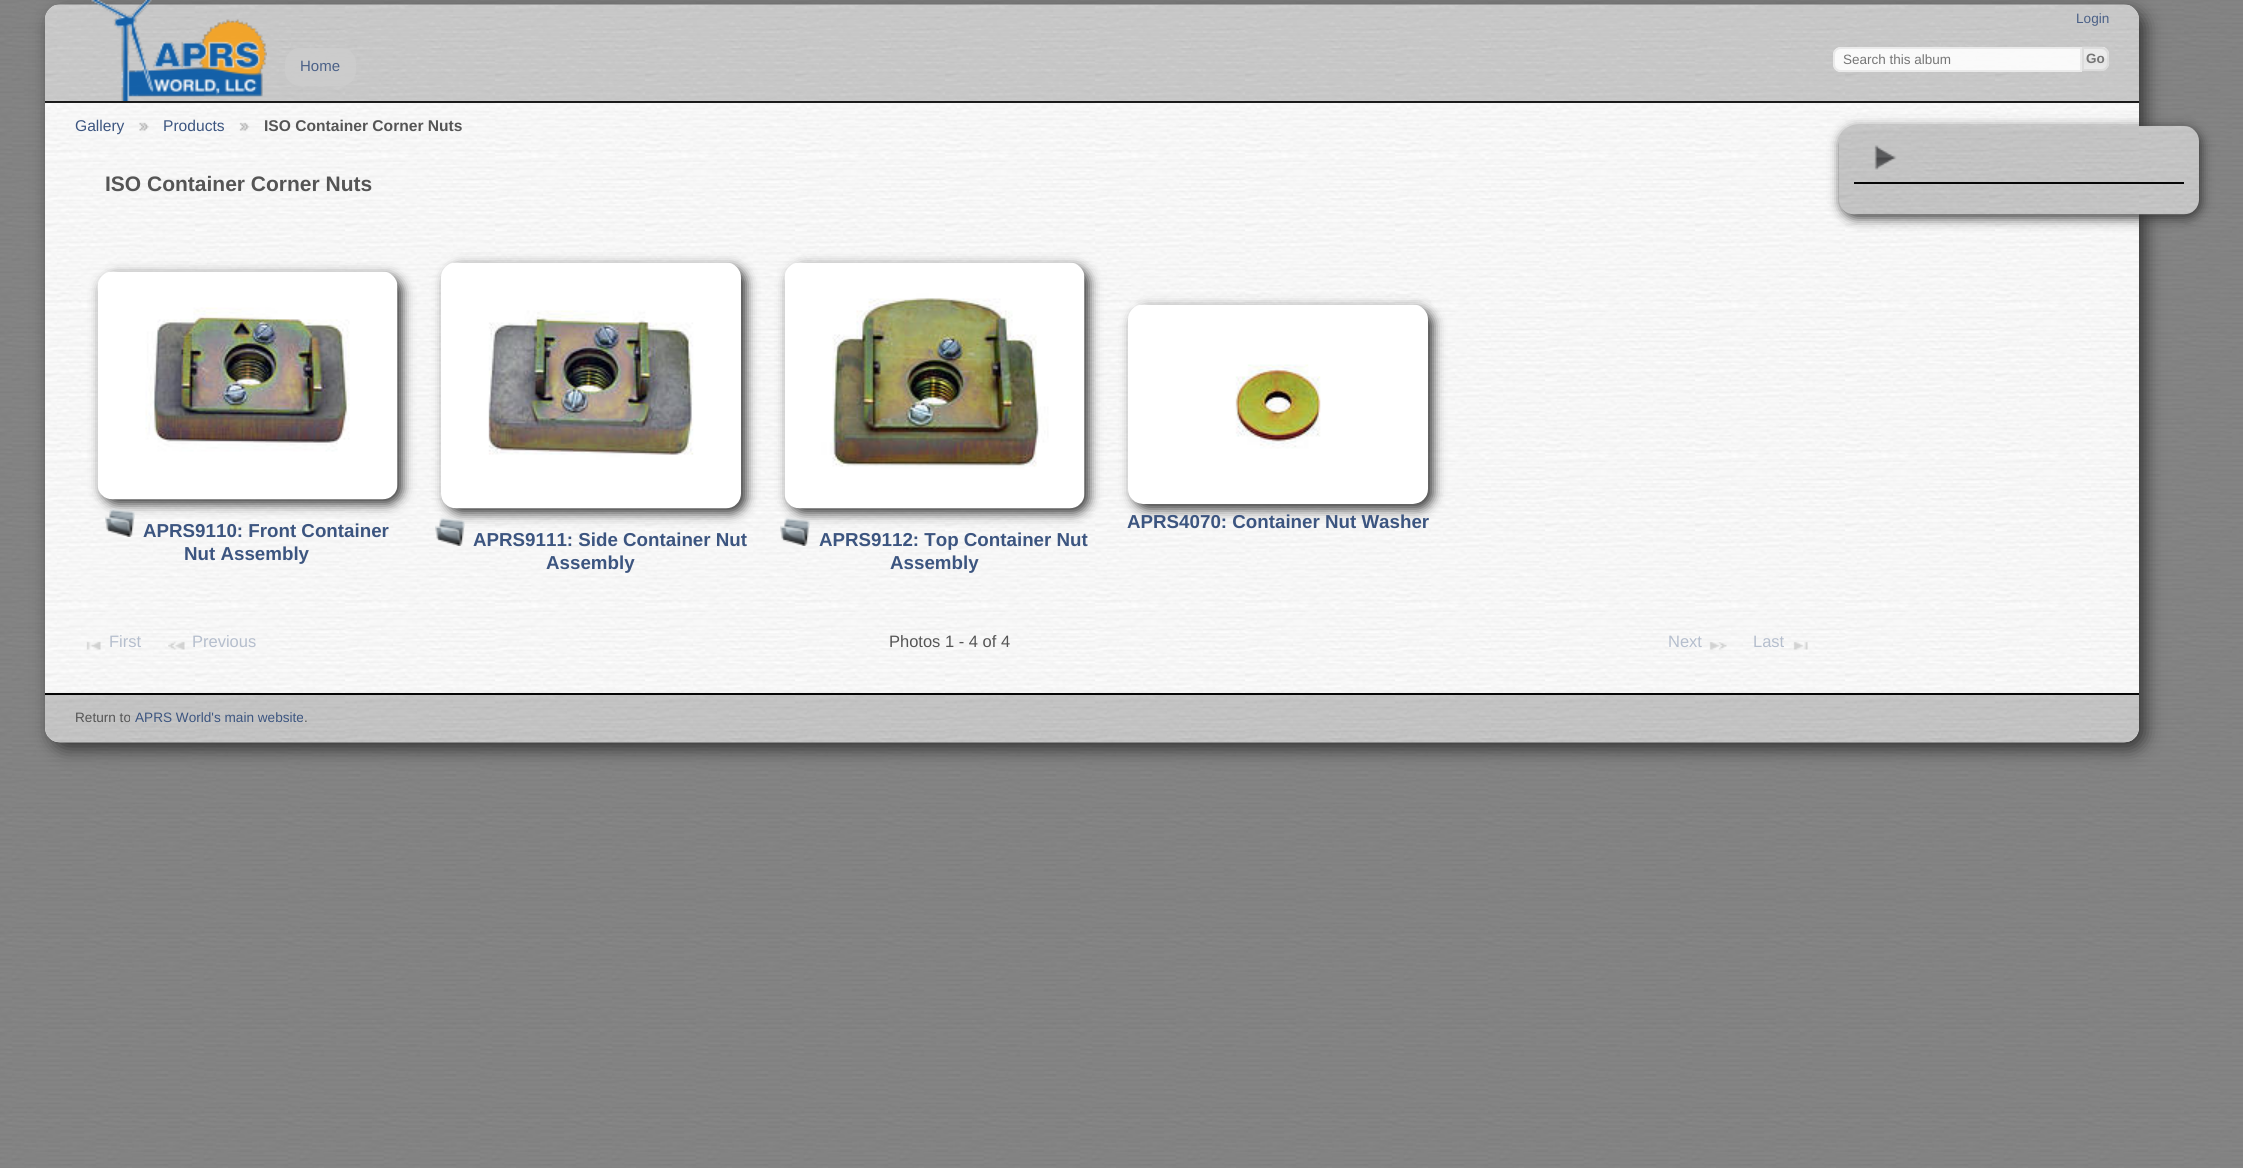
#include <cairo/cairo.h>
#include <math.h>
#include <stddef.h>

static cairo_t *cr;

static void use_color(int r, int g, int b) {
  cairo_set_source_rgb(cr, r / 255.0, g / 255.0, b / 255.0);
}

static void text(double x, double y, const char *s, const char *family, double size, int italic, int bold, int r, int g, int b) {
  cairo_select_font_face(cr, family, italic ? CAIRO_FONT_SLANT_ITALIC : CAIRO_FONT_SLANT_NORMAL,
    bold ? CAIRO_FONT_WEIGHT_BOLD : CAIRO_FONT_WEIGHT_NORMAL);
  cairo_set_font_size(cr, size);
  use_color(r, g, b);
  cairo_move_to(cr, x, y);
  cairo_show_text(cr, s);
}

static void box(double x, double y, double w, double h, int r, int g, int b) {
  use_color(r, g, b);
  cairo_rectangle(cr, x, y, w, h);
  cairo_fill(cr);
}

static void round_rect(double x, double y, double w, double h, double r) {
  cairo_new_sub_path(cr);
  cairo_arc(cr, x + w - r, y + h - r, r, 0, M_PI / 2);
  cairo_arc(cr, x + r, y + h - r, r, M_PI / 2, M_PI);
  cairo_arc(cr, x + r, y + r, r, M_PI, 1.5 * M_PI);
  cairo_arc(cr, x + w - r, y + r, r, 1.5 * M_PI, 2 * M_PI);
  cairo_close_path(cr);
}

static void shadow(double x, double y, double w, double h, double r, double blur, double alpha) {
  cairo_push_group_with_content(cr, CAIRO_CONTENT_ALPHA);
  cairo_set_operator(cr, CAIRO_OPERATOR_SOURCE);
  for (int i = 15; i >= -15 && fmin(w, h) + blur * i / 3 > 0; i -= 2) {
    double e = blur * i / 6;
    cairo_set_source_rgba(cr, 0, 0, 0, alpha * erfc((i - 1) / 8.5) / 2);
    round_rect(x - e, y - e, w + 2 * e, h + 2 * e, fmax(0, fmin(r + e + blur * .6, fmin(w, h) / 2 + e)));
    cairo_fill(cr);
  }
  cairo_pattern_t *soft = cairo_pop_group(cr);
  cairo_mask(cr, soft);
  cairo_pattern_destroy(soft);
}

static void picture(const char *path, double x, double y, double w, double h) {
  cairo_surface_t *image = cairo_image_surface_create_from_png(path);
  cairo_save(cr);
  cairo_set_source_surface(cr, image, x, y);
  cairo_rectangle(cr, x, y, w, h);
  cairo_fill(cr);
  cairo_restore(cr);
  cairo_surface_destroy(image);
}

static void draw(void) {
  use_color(255, 255, 255);
  cairo_paint(cr);
  picture("img_01.png", 0, 0, 2243, 1168);
  use_color(51, 51, 51);
  shadow(51, 11, 2094, 738, 15, 9, 1);
  picture("img_02.png", 45, 4, 2094, 739);
  picture("img_03.png", 45, 4, 2094, 98);
  cairo_set_source_rgba(cr, 0.02, 0.02, 0.02, 0.9);
  cairo_rectangle(cr, 45, 101, 2094, 2);
  cairo_fill(cr);
  picture("img_04.png", 90, 0, 177, 101);
  cairo_set_source_rgba(cr, 0.8, 0.8, 0.8, 0.9);
  round_rect(285, 48, 71, 38, 15);
  cairo_fill(cr);
  cairo_set_source_rgba(cr, 1, 1, 1, 0.9);
  cairo_new_path(cr);
  cairo_move_to(cr, 1841, 47);
  cairo_line_to(cr, 2082, 47);
  cairo_line_to(cr, 2082, 72);
  cairo_line_to(cr, 1841, 72);
  cairo_curve_to(cr, 1836.5, 72, 1833, 68.5, 1833, 64);
  cairo_line_to(cr, 1833, 55);
  cairo_curve_to(cr, 1833, 50.5, 1836.5, 47, 1841, 47);
  cairo_close_path(cr);
  cairo_fill(cr);
  cairo_new_path(cr);
  cairo_move_to(cr, 1841, 48);
  cairo_line_to(cr, 2081, 48);
  cairo_line_to(cr, 2081, 71);
  cairo_line_to(cr, 1841, 71);
  cairo_curve_to(cr, 1837, 71, 1834, 68, 1834, 64);
  cairo_line_to(cr, 1834, 55);
  cairo_curve_to(cr, 1834, 51, 1837, 48, 1841, 48);
  cairo_close_path(cr);
  cairo_set_source_rgba(cr, 0.91, 0.91, 0.91, 0.9);
  cairo_stroke(cr);
  cairo_set_source_rgba(cr, 0.902, 0.902, 0.902, 0.9);
  cairo_new_path(cr);
  cairo_move_to(cr, 2082, 47);
  cairo_line_to(cr, 2101, 47);
  cairo_curve_to(cr, 2105.5, 47, 2109, 50.5, 2109, 55);
  cairo_line_to(cr, 2109, 63);
  cairo_curve_to(cr, 2109, 67.5, 2105.5, 71, 2101, 71);
  cairo_line_to(cr, 2082, 71);
  cairo_close_path(cr);
  cairo_fill(cr);
  picture("img_05.png", 2082, 46, 27, 24);
  cairo_new_path(cr);
  cairo_move_to(cr, 2083, 48);
  cairo_line_to(cr, 2101, 48);
  cairo_curve_to(cr, 2105, 48, 2108, 51, 2108, 55);
  cairo_line_to(cr, 2108, 63);
  cairo_curve_to(cr, 2108, 67, 2105, 70, 2101, 70);
  cairo_line_to(cr, 2083, 70);
  cairo_close_path(cr);
  cairo_set_source_rgba(cr, 0.859, 0.859, 0.859, 0.9);
  cairo_stroke(cr);
  picture("img_06.png", 139, 122, 10, 9);
  picture("img_07.png", 239, 122, 11, 9);
  use_color(51, 51, 51);
  shadow(1133, 309, 300, 200, 15, 6, 1);
  picture("img_08.png", 1128, 304, 300, 200);
  shadow(102, 276, 300, 228, 15, 6, 1);
  picture("img_09.png", 97, 271, 301, 229);
  picture("img_10.png", 105, 508, 30, 29);
  shadow(446, 267, 300, 246, 15, 6, 1);
  picture("img_11.png", 441, 262, 300, 247);
  picture("img_12.png", 435, 517, 30, 29);
  shadow(789, 267, 300, 246, 15, 6, 1);
  picture("img_13.png", 784, 262, 301, 247);
  picture("img_14.png", 780, 517, 30, 29);
  picture("img_15.png", 86, 641, 15, 9);
  picture("img_16.png", 168, 641, 17, 9);
  picture("img_17.png", 1709, 642, 18, 8);
  picture("img_18.png", 1793, 642, 15, 8);
  shadow(1841, 129, 360, 89, 15, 6, 1);
  picture("img_19.png", 1839, 126, 360, 89);
  box(1854, 182, 330, 2, 5, 5, 5);
  picture("img_20.png", 1874, 145, 23, 25);
  picture("img_21.png", 45, 695, 2094, 48);
  box(45, 693, 2094, 2, 5, 5, 5);
  text(2076, 23, "Login", "Liberation Sans", 13.6, 0, 0, 74, 96, 135);
  text(300, 71, "Home", "Liberation Sans", 15, 0, 0, 74, 96, 135);
  text(1843, 64, "Search this album", "Liberation Sans", 13.5, 0, 0, 117, 117, 117);
  text(2086, 63, "Go", "Liberation Sans", 13.5, 0, 1, 117, 117, 117);
  text(75, 131, "Gallery", "Liberation Sans", 15.6, 0, 0, 60, 85, 128);
  text(163, 131, "Products", "Liberation Sans", 15.6, 0, 0, 60, 85, 128);
  text(264, 131, "ISO Container Corner Nuts", "Liberation Sans", 15.6, 0, 1, 85, 85, 85);
  text(105, 191, "ISO Container Corner Nuts", "Liberation Sans", 21, 0, 1, 85, 85, 85);
  text(1127, 528, "APRS4070: Container Nut Washer", "Liberation Sans", 18.75, 0, 1, 60, 85, 128);
  text(143, 537, "APRS9110: Front Container", "Liberation Sans", 18.75, 0, 1, 60, 85, 128);
  text(184, 560, "Nut Assembly", "Liberation Sans", 18.75, 0, 1, 60, 85, 128);
  text(473, 546, "APRS9111: Side Container Nut", "Liberation Sans", 18.75, 0, 1, 60, 85, 128);
  text(546, 569, "Assembly", "Liberation Sans", 18.75, 0, 1, 60, 85, 128);
  text(819, 546, "APRS9112: Top Container Nut", "Liberation Sans", 18.75, 0, 1, 60, 85, 128);
  text(890, 569, "Assembly", "Liberation Sans", 18.75, 0, 1, 60, 85, 128);
  text(109, 647, "First", "Liberation Sans", 16.5, 0, 0, 181, 190, 205);
  text(192, 647, "Previous", "Liberation Sans", 16.5, 0, 0, 181, 190, 205);
  text(889, 647, "Photos 1 - 4 of 4", "Liberation Sans", 16.5, 0, 0, 85, 85, 85);
  text(1668, 647, "Next", "Liberation Sans", 16.5, 0, 0, 181, 190, 205);
  text(1753, 647, "Last", "Liberation Sans", 16.5, 0, 0, 181, 190, 205);
  text(75, 722, "Return to", "Liberation Sans", 13.6, 0, 0, 85, 85, 85);
  text(135, 722, "APRS World's main website", "Liberation Sans", 13.6, 0, 0, 60, 85, 128);
  text(304, 722, ".", "Liberation Sans", 13.6, 0, 0, 85, 85, 85);
}

int main(void) {
  cairo_surface_t *surface = cairo_image_surface_create(CAIRO_FORMAT_RGB24, 2243, 1168);
  cr = cairo_create(surface);
  cairo_font_options_t *options = cairo_font_options_create();
  cairo_font_options_set_hint_metrics(options, CAIRO_HINT_METRICS_OFF);
  cairo_font_options_set_hint_style(options, CAIRO_HINT_STYLE_NONE);
  cairo_set_font_options(cr, options);
  cairo_set_miter_limit(cr, 4);
  draw();
  cairo_surface_write_to_png(surface, "out.png");
  cairo_font_options_destroy(options);
  cairo_destroy(cr);
  cairo_surface_destroy(surface);
  return 0;
}
